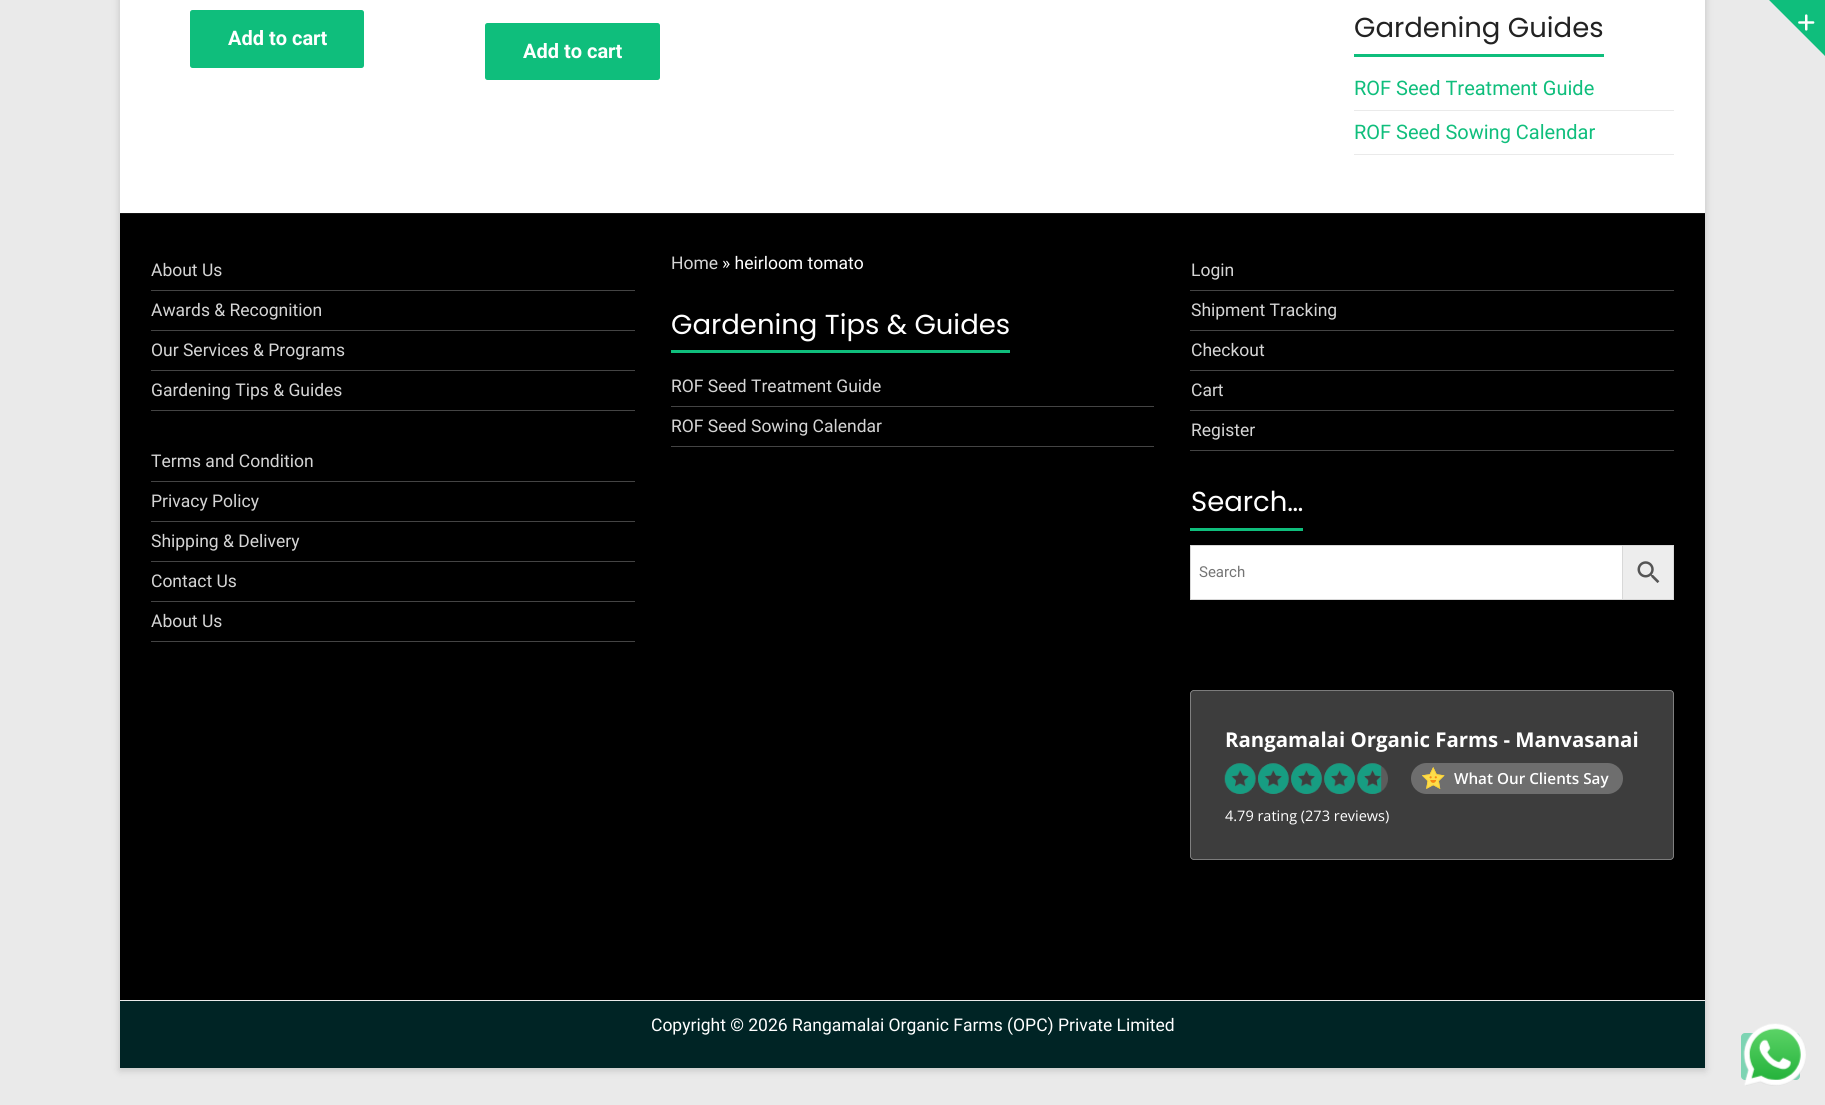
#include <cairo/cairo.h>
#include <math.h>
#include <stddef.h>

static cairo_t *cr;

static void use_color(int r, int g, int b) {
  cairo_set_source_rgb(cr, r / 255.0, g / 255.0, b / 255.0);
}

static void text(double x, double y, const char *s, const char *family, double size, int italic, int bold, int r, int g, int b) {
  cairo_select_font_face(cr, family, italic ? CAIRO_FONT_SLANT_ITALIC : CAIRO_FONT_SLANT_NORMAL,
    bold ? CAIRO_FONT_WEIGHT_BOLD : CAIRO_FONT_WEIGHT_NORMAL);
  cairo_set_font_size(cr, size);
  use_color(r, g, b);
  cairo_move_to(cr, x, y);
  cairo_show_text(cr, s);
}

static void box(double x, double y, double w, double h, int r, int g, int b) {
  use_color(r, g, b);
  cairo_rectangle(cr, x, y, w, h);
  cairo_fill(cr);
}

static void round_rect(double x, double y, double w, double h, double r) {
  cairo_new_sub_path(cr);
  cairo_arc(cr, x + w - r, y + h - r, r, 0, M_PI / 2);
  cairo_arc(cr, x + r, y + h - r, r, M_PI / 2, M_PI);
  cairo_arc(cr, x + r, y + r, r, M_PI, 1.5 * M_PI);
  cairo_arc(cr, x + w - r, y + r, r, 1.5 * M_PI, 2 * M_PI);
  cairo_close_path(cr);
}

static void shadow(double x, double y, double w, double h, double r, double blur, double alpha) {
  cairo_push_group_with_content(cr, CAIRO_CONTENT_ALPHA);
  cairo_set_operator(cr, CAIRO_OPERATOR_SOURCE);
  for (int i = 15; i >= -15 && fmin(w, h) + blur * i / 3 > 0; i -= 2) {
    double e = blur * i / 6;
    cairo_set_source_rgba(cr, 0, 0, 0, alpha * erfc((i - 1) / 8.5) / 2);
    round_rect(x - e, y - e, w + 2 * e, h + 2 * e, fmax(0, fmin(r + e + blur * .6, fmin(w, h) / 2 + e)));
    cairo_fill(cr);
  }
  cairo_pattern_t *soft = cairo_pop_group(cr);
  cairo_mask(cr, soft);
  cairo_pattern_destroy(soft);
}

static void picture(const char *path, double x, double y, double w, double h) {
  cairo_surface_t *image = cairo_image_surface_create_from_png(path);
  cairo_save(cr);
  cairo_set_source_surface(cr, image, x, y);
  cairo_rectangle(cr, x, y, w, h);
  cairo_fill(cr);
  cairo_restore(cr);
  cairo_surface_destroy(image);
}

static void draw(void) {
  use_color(234, 234, 234);
  cairo_paint(cr);
  use_color(100, 100, 100);
  shadow(120, -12, 1585, 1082, 0, 4, 0.3);
  box(120, 0, 1585, 213, 255, 255, 255);
  use_color(15, 190, 124);
  round_rect(190, 10, 174, 58, 2.5);
  cairo_fill(cr);
  round_rect(485, 23, 175, 57, 2.5);
  cairo_fill(cr);
  box(1354, 54, 250, 3, 15, 190, 124);
  box(1354, 110, 320, 1, 234, 234, 234);
  box(1354, 154, 320, 1, 234, 234, 234);
  use_color(15, 190, 124);
  cairo_new_path(cr);
  cairo_move_to(cr, 1825, 0);
  cairo_line_to(cr, 1825, 56);
  cairo_line_to(cr, 1769, 0);
  cairo_close_path(cr);
  cairo_fill(cr);
  picture("img_01.png", 1798, 14, 17, 17);
  box(120, 214, 1585, 786, 0, 0, 0);
  box(120, 213, 1585, 1, 20, 20, 20);
  box(151, 290, 484, 1, 68, 68, 68);
  box(151, 330, 484, 1, 68, 68, 68);
  box(151, 370, 484, 1, 68, 68, 68);
  box(151, 410, 484, 1, 68, 68, 68);
  box(151, 481, 484, 1, 68, 68, 68);
  box(151, 521, 484, 1, 68, 68, 68);
  box(151, 561, 484, 1, 68, 68, 68);
  box(151, 601, 484, 1, 68, 68, 68);
  box(151, 641, 484, 1, 68, 68, 68);
  box(671, 350, 339, 3, 15, 190, 124);
  box(671, 406, 483, 1, 68, 68, 68);
  box(671, 446, 483, 1, 68, 68, 68);
  box(1190, 290, 484, 1, 68, 68, 68);
  box(1190, 330, 484, 1, 68, 68, 68);
  box(1190, 370, 484, 1, 68, 68, 68);
  box(1190, 410, 484, 1, 68, 68, 68);
  box(1190, 450, 484, 1, 68, 68, 68);
  box(1190, 528, 113, 3, 15, 190, 124);
  box(1623, 546, 50, 53, 237, 237, 237);
  cairo_rectangle(cr, 1621.5, 545.5, 52, 54);
  use_color(216, 216, 216);
  cairo_set_line_width(cr, 1);
  cairo_stroke(cr);
  use_color(255, 255, 255);
  cairo_rectangle(cr, 1190.5, 545.5, 432, 54);
  cairo_fill_preserve(cr);
  use_color(216, 216, 216);
  cairo_stroke(cr);
  picture("img_02.png", 1637, 561, 23, 22);
  use_color(61, 61, 61);
  round_rect(1190.45, 690.45, 483.1, 169.1, 3.55);
  cairo_fill_preserve(cr);
  use_color(139, 139, 139);
  cairo_set_line_width(cr, 0.9);
  cairo_stroke(cr);
  picture("img_03.png", 1224, 763, 32, 31);
  picture("img_04.png", 1224, 763, 32, 31);
  picture("img_05.png", 1258, 763, 31, 31);
  picture("img_06.png", 1258, 763, 31, 31);
  picture("img_07.png", 1291, 763, 31, 31);
  picture("img_08.png", 1291, 763, 31, 31);
  picture("img_09.png", 1324, 763, 31, 31);
  picture("img_10.png", 1324, 763, 31, 31);
  picture("img_11.png", 1357, 763, 31, 31);
  picture("img_12.png", 1357, 763, 25, 31);
  use_color(110, 110, 110);
  round_rect(1411, 763, 212, 31, 15.5);
  cairo_fill(cr);
  picture("img_13.png", 1422, 767, 23, 22);
  box(120, 1001, 1585, 67, 0, 36, 37);
  box(120, 1000, 1585, 1, 234, 234, 234);
  use_color(125, 212, 179);
  round_rect(1741, 1033, 59, 47, 4);
  cairo_fill(cr);
  picture("img_14.png", 1743, 1023, 63, 63);
  text(228, 45, "Add to cart", "Roboto", 20, 0, 1, 255, 255, 255);
  text(523, 58, "Add to cart", "Roboto", 20, 0, 1, 255, 255, 255);
  text(1354, 37, "Gardening Guides", "Poppins", 27.5, 0, 0, 34, 34, 34);
  text(1354, 95, "ROF Seed Treatment Guide", "Roboto", 20, 0, 0, 15, 190, 124);
  text(1354, 139, "ROF Seed Sowing Calendar", "Roboto", 20, 0, 0, 15, 190, 124);
  text(151, 276, "About Us", "Roboto", 17.5, 0, 0, 213, 213, 213);
  text(151, 316, "Awards & Recognition", "Roboto", 17.5, 0, 0, 213, 213, 213);
  text(151, 356, "Our Services & Programs", "Roboto", 17.5, 0, 0, 213, 213, 213);
  text(151, 396, "Gardening Tips & Guides", "Roboto", 17.5, 0, 0, 213, 213, 213);
  text(151, 467, "Terms and Condition", "Roboto", 17.5, 0, 0, 213, 213, 213);
  text(151, 507, "Privacy Policy", "Roboto", 17.5, 0, 0, 213, 213, 213);
  text(151, 547, "Shipping & Delivery", "Roboto", 17.5, 0, 0, 213, 213, 213);
  text(151, 587, "Contact Us", "Roboto", 17.5, 0, 0, 213, 213, 213);
  text(151, 627, "About Us", "Roboto", 17.5, 0, 0, 213, 213, 213);
  text(671, 269, "Home", "Roboto", 17.5, 0, 0, 213, 213, 213);
  text(722, 269, "» heirloom tomato", "Roboto", 17.5, 0, 0, 255, 255, 255);
  text(671, 334, "Gardening Tips & Guides", "Poppins", 27.5, 0, 0, 255, 255, 255);
  text(671, 392, "ROF Seed Treatment Guide", "Roboto", 17.5, 0, 0, 213, 213, 213);
  text(671, 432, "ROF Seed Sowing Calendar", "Roboto", 17.5, 0, 0, 213, 213, 213);
  text(1191, 276, "Login", "Roboto", 17.5, 0, 0, 213, 213, 213);
  text(1191, 316, "Shipment Tracking", "Roboto", 17.5, 0, 0, 213, 213, 213);
  text(1191, 356, "Checkout", "Roboto", 17.5, 0, 0, 213, 213, 213);
  text(1191, 396, "Cart", "Roboto", 17.5, 0, 0, 213, 213, 213);
  text(1191, 436, "Register", "Roboto", 17.5, 0, 0, 213, 213, 213);
  text(1191, 511, "Search…", "Poppins", 27.5, 0, 0, 255, 255, 255);
  text(1199, 577, "Search", "Roboto", 15, 0, 0, 117, 117, 117);
  text(1225, 747, "Rangamalai Organic Farms - Manvasanai", "Open Sans", 20.4, 0, 1, 255, 255, 255);
  text(1454, 784, "What Our Clients Say", "Open Sans SemiBold", 15.25, 0, 0, 255, 255, 255);
  text(1225, 821, "4.79 rating (273 reviews)", "Open Sans", 14.5, 0, 0, 255, 255, 255);
  text(651, 1031, "Copyright © 2026 Rangamalai Organic Farms (OPC) Private Limited", "Roboto", 17.5, 0, 0, 255, 255, 255);
}

int main(void) {
  cairo_surface_t *surface = cairo_image_surface_create(CAIRO_FORMAT_RGB24, 1825, 1105);
  cr = cairo_create(surface);
  cairo_font_options_t *options = cairo_font_options_create();
  cairo_font_options_set_hint_metrics(options, CAIRO_HINT_METRICS_OFF);
  cairo_font_options_set_hint_style(options, CAIRO_HINT_STYLE_NONE);
  cairo_set_font_options(cr, options);
  cairo_set_miter_limit(cr, 4);
  draw();
  cairo_surface_write_to_png(surface, "out.png");
  cairo_font_options_destroy(options);
  cairo_destroy(cr);
  cairo_surface_destroy(surface);
  return 0;
}
